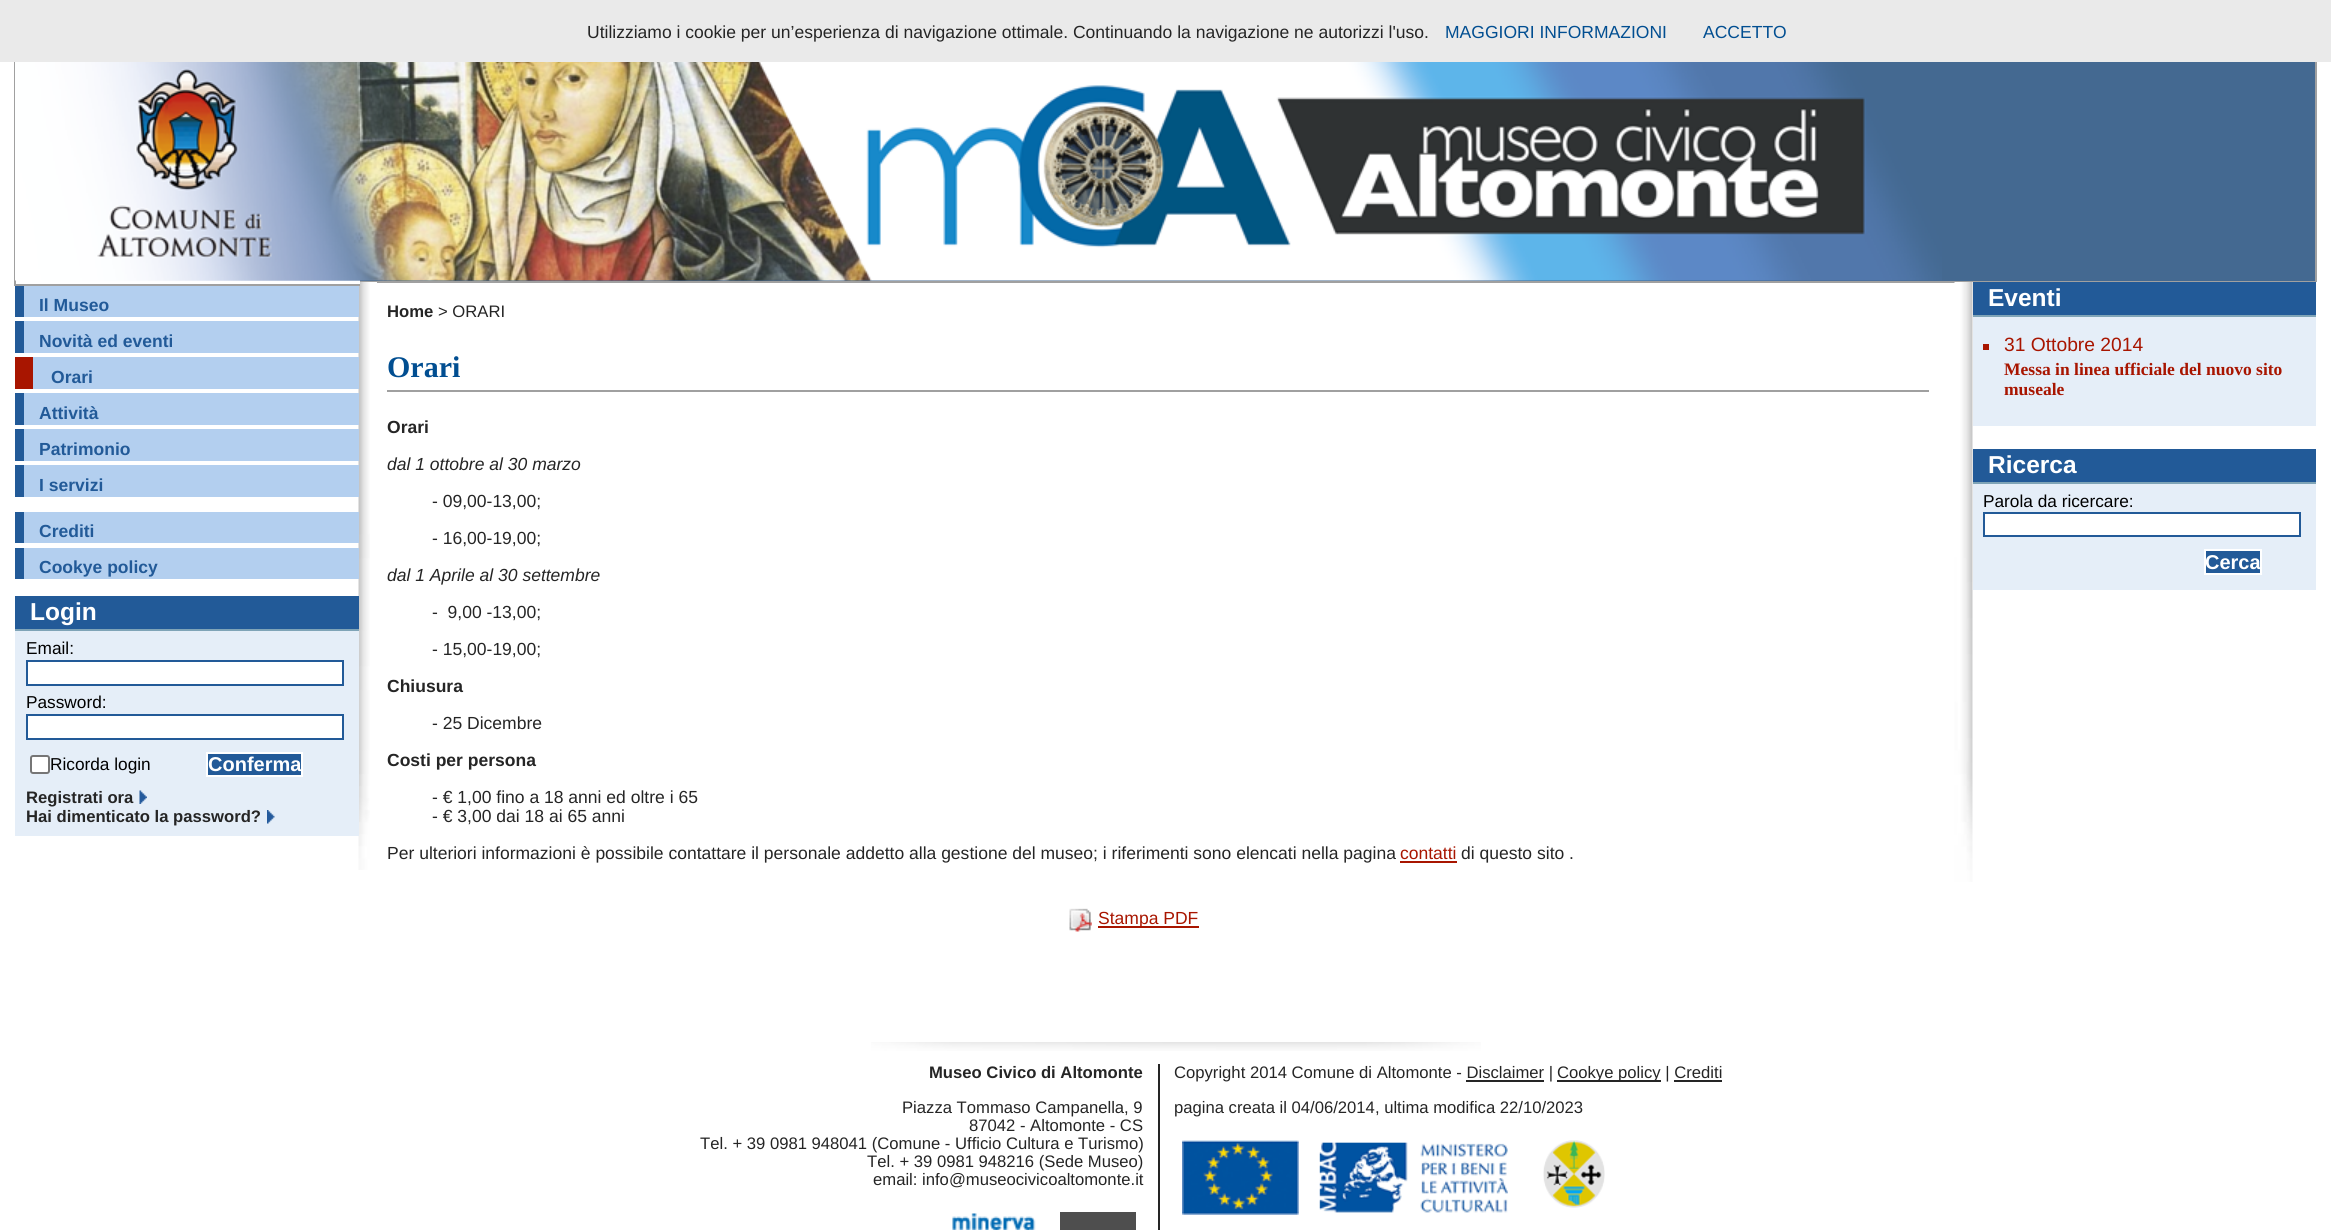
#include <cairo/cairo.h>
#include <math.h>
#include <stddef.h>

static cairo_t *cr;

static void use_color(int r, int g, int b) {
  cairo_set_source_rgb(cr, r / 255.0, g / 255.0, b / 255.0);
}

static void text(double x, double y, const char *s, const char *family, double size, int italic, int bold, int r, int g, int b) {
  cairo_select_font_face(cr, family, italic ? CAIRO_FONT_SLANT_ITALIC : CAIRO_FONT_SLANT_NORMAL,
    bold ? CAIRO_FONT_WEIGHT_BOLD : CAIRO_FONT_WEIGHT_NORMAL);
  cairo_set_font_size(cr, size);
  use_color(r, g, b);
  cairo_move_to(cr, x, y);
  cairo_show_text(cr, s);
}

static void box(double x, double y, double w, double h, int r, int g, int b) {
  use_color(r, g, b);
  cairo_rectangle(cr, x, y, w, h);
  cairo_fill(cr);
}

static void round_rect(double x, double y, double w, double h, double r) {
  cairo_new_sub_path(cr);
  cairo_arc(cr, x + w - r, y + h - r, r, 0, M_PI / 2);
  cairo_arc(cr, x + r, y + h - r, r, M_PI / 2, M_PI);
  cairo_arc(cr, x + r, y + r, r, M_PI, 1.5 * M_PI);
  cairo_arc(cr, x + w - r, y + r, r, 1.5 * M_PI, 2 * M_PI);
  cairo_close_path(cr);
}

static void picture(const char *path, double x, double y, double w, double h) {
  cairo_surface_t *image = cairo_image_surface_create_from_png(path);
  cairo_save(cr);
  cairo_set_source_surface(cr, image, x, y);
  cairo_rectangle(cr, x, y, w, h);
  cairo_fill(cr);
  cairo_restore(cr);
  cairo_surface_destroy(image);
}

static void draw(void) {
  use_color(255, 255, 255);
  cairo_paint(cr);
  box(0, 0, 2331, 62, 234, 234, 234);
  box(360, 62, 1955, 219, 68, 105, 145);
  picture("img_01.png", 360, 62, 1582, 219);
  box(2315, 62, 2, 220, 160, 160, 160);
  box(360, 281, 1956, 2, 160, 160, 160);
  box(360, 282, 17, 1, 255, 255, 255);
  picture("img_04.png", 358, 282, 12, 588);
  box(358, 282, 2, 2, 255, 255, 255);
  picture("img_02.png", 77, 280, 283, 1);
  box(14, 284, 346, 2, 160, 160, 160);
  box(14, 62, 2, 223, 160, 160, 160);
  picture("img_03.png", 15, 62, 345, 219);
  box(24, 286, 335, 31, 179, 207, 239);
  box(15, 286, 9, 31, 34, 90, 152);
  box(24, 321, 335, 32, 179, 207, 239);
  box(15, 321, 9, 32, 34, 90, 152);
  box(33, 357, 326, 32, 179, 207, 239);
  box(15, 357, 18, 32, 168, 21, 0);
  box(24, 393, 335, 32, 179, 207, 239);
  box(15, 393, 9, 32, 34, 90, 152);
  box(24, 429, 335, 32, 179, 207, 239);
  box(15, 429, 9, 32, 34, 90, 152);
  box(24, 465, 335, 32, 179, 207, 239);
  box(15, 465, 9, 32, 34, 90, 152);
  box(24, 512, 335, 31, 179, 207, 239);
  box(15, 512, 9, 31, 34, 90, 152);
  box(24, 548, 335, 31, 179, 207, 239);
  box(15, 548, 9, 31, 34, 90, 152);
  box(15, 631, 344, 205, 229, 238, 248);
  box(15, 596, 344, 33, 34, 90, 152);
  box(15, 629, 344, 2, 127, 164, 183);
  use_color(255, 255, 255);
  cairo_rectangle(cr, 27, 661, 316, 24);
  cairo_fill_preserve(cr);
  use_color(34, 90, 152);
  cairo_stroke(cr);
  use_color(255, 255, 255);
  cairo_rectangle(cr, 27, 715, 316, 24);
  cairo_fill_preserve(cr);
  use_color(34, 90, 152);
  cairo_stroke(cr);
  use_color(255, 255, 255);
  round_rect(31, 756, 18, 17, 2);
  cairo_fill_preserve(cr);
  use_color(118, 118, 118);
  cairo_stroke(cr);
  use_color(34, 90, 152);
  cairo_rectangle(cr, 207, 753, 95, 23);
  cairo_fill_preserve(cr);
  use_color(255, 255, 255);
  cairo_stroke(cr);
  picture("img_05.png", 139, 790, 8, 14);
  picture("img_06.png", 267, 810, 8, 14);
  box(387, 390, 1542, 2, 160, 160, 160);
  box(1400, 861, 57, 2, 168, 21, 0);
  picture("img_07.png", 1069, 908, 23, 24);
  box(1098, 926, 101, 2, 168, 21, 0);
  box(1955, 282, 361, 1, 255, 255, 255);
  picture("img_08.png", 1954, 282, 19, 600);
  box(1973, 317, 343, 109, 229, 238, 248);
  box(1973, 282, 343, 33, 34, 90, 152);
  box(1973, 315, 343, 2, 127, 164, 183);
  box(1983, 344, 6, 6, 168, 21, 0);
  box(1973, 484, 343, 106, 229, 238, 248);
  box(1973, 449, 343, 33, 34, 90, 152);
  box(1973, 482, 343, 2, 127, 164, 183);
  use_color(255, 255, 255);
  cairo_rectangle(cr, 1984, 513, 316, 23);
  cairo_fill_preserve(cr);
  use_color(34, 90, 152);
  cairo_stroke(cr);
  cairo_rectangle(cr, 2205, 550, 56, 24);
  cairo_fill_preserve(cr);
  use_color(255, 255, 255);
  cairo_stroke(cr);
  picture("img_09.png", 871, 1042, 610, 9);
  box(1158, 1064, 2, 166, 37, 37, 37);
  picture("img_10.png", 952, 1213, 84, 17);
  box(1060, 1212, 76, 18, 78, 78, 78);
  box(1557, 1080, 104, 2, 37, 37, 37);
  box(1466, 1080, 78, 2, 37, 37, 37);
  box(1674, 1080, 48, 2, 37, 37, 37);
  picture("img_11.png", 1182, 1140, 117, 75);
  picture("img_12.png", 1319, 1142, 189, 71);
  picture("img_13.png", 1543, 1140, 62, 68);
  text(587, 38, "Utilizziamo i cookie per un’esperienza di navigazione ottimale. Continuando la navigazione ne autorizzi l'uso.", "Liberation Sans", 17.52, 0, 0, 37, 37, 37);
  text(1445, 38, "MAGGIORI INFORMAZIONI", "Liberation Sans", 17.52, 0, 0, 1, 78, 145);
  text(1703, 38, "ACCETTO", "Liberation Sans", 17.52, 0, 0, 1, 78, 145);
  text(39, 311, "Il Museo", "Liberation Sans", 17.52, 0, 1, 34, 90, 152);
  text(39, 347, "Novità ed eventi", "Liberation Sans", 17.52, 0, 1, 34, 90, 152);
  text(51, 383, "Orari", "Liberation Sans", 17.52, 0, 1, 34, 90, 152);
  text(39, 419, "Attività", "Liberation Sans", 17.52, 0, 1, 34, 90, 152);
  text(39, 455, "Patrimonio", "Liberation Sans", 17.52, 0, 1, 34, 90, 152);
  text(39, 491, "I servizi", "Liberation Sans", 17.52, 0, 1, 34, 90, 152);
  text(39, 537, "Crediti", "Liberation Sans", 17.52, 0, 1, 34, 90, 152);
  text(39, 573, "Cookye policy", "Liberation Sans", 17.52, 0, 1, 34, 90, 152);
  text(30, 620, "Login", "Liberation Sans", 24.5, 0, 1, 255, 255, 255);
  text(26, 654, "Email:", "Liberation Sans", 17.25, 0, 0, 0, 0, 0);
  text(26, 708, "Password:", "Liberation Sans", 17.25, 0, 0, 0, 0, 0);
  text(50, 770, "Ricorda login", "Liberation Sans", 17.25, 0, 0, 0, 0, 0);
  text(208, 771, "Conferma", "Liberation Sans", 20, 0, 1, 255, 255, 255);
  text(26, 803, "Registrati ora", "Liberation Sans", 16.65, 0, 1, 37, 37, 37);
  text(26, 822, "Hai dimenticato la password?", "Liberation Sans", 16.65, 0, 1, 37, 37, 37);
  text(387, 317, "Home", "Liberation Sans", 16.65, 0, 1, 37, 37, 37);
  text(438, 317, "> ORARI", "Liberation Sans", 16.65, 0, 0, 37, 37, 37);
  text(387, 377, "Orari", "Liberation Serif", 30, 0, 1, 1, 78, 145);
  text(387, 433, "Orari", "Liberation Sans", 17.52, 0, 1, 37, 37, 37);
  text(387, 470, "dal 1 ottobre al 30 marzo", "Liberation Sans", 17.52, 1, 0, 37, 37, 37);
  text(432, 507, "- 09,00-13,00;", "Liberation Sans", 17.52, 0, 0, 37, 37, 37);
  text(432, 544, "- 16,00-19,00;", "Liberation Sans", 17.52, 0, 0, 37, 37, 37);
  text(387, 581, "dal 1 Aprile al 30 settembre", "Liberation Sans", 17.52, 1, 0, 37, 37, 37);
  text(432, 618, "-  9,00 -13,00;", "Liberation Sans", 17.52, 0, 0, 37, 37, 37);
  text(432, 655, "- 15,00-19,00;", "Liberation Sans", 17.52, 0, 0, 37, 37, 37);
  text(387, 692, "Chiusura", "Liberation Sans", 17.52, 0, 1, 37, 37, 37);
  text(432, 729, "- 25 Dicembre", "Liberation Sans", 17.52, 0, 0, 37, 37, 37);
  text(387, 766, "Costi per persona", "Liberation Sans", 17.52, 0, 1, 37, 37, 37);
  text(432, 803, "- € 1,00 fino a 18 anni ed oltre i 65", "Liberation Sans", 17.52, 0, 0, 37, 37, 37);
  text(432, 822, "- € 3,00 dai 18 ai 65 anni", "Liberation Sans", 17.52, 0, 0, 37, 37, 37);
  text(387, 859, "Per ulteriori informazioni è possibile contattare il personale addetto alla gestione del museo; i riferimenti sono elencati nella pagina", "Liberation Sans", 17.52, 0, 0, 37, 37, 37);
  text(1400, 859, "contatti", "Liberation Sans", 17.52, 0, 0, 168, 21, 0);
  text(1461, 859, "di questo sito .", "Liberation Sans", 17.52, 0, 0, 37, 37, 37);
  text(1098, 924, "Stampa PDF", "Liberation Sans", 17.52, 0, 0, 168, 21, 0);
  text(1988, 306, "Eventi", "Liberation Sans", 24.5, 0, 1, 255, 255, 255);
  text(2004, 351, "31 Ottobre 2014", "Liberation Sans", 19.25, 0, 0, 168, 21, 0);
  text(2004, 375, "Messa in linea ufficiale del nuovo sito", "Liberation Serif", 17.52, 0, 1, 168, 21, 0);
  text(2004, 395, "museale", "Liberation Serif", 17.52, 0, 1, 168, 21, 0);
  text(1988, 473, "Ricerca", "Liberation Sans", 24.5, 0, 1, 255, 255, 255);
  text(1983, 507, "Parola da ricercare:", "Liberation Sans", 17.25, 0, 0, 0, 0, 0);
  text(2205, 569, "Cerca", "Liberation Sans", 20, 0, 1, 255, 255, 255);
  text(929, 1078, "Museo Civico di Altomonte", "Liberation Sans", 16.65, 0, 1, 37, 37, 37);
  text(902, 1113, "Piazza Tommaso Campanella, 9", "Liberation Sans", 16.65, 0, 0, 37, 37, 37);
  text(969, 1131, "87042 - Altomonte - CS", "Liberation Sans", 16.65, 0, 0, 37, 37, 37);
  text(700, 1149, "Tel. + 39 0981 948041 (Comune - Ufficio Cultura e Turismo)", "Liberation Sans", 16.65, 0, 0, 37, 37, 37);
  text(867, 1167, "Tel. + 39 0981 948216 (Sede Museo)", "Liberation Sans", 16.65, 0, 0, 37, 37, 37);
  text(873, 1185, "email: info@museocivicoaltomonte.it", "Liberation Sans", 16.65, 0, 0, 37, 37, 37);
  text(1174, 1078, "Copyright 2014 Comune di Altomonte - Disclaimer |", "Liberation Sans", 16.65, 0, 0, 37, 37, 37);
  text(1557, 1078, "Cookye policy | Crediti", "Liberation Sans", 16.65, 0, 0, 37, 37, 37);
  text(1174, 1113, "pagina creata il 04/06/2014, ultima modifica 22/10/2023", "Liberation Sans", 16.65, 0, 0, 37, 37, 37);
}

int main(void) {
  cairo_surface_t *surface = cairo_image_surface_create(CAIRO_FORMAT_RGB24, 2331, 1230);
  cr = cairo_create(surface);
  cairo_font_options_t *options = cairo_font_options_create();
  cairo_font_options_set_hint_metrics(options, CAIRO_HINT_METRICS_OFF);
  cairo_font_options_set_hint_style(options, CAIRO_HINT_STYLE_NONE);
  cairo_set_font_options(cr, options);
  cairo_set_miter_limit(cr, 4);
  draw();
  cairo_surface_write_to_png(surface, "out.png");
  cairo_font_options_destroy(options);
  cairo_destroy(cr);
  cairo_surface_destroy(surface);
  return 0;
}
